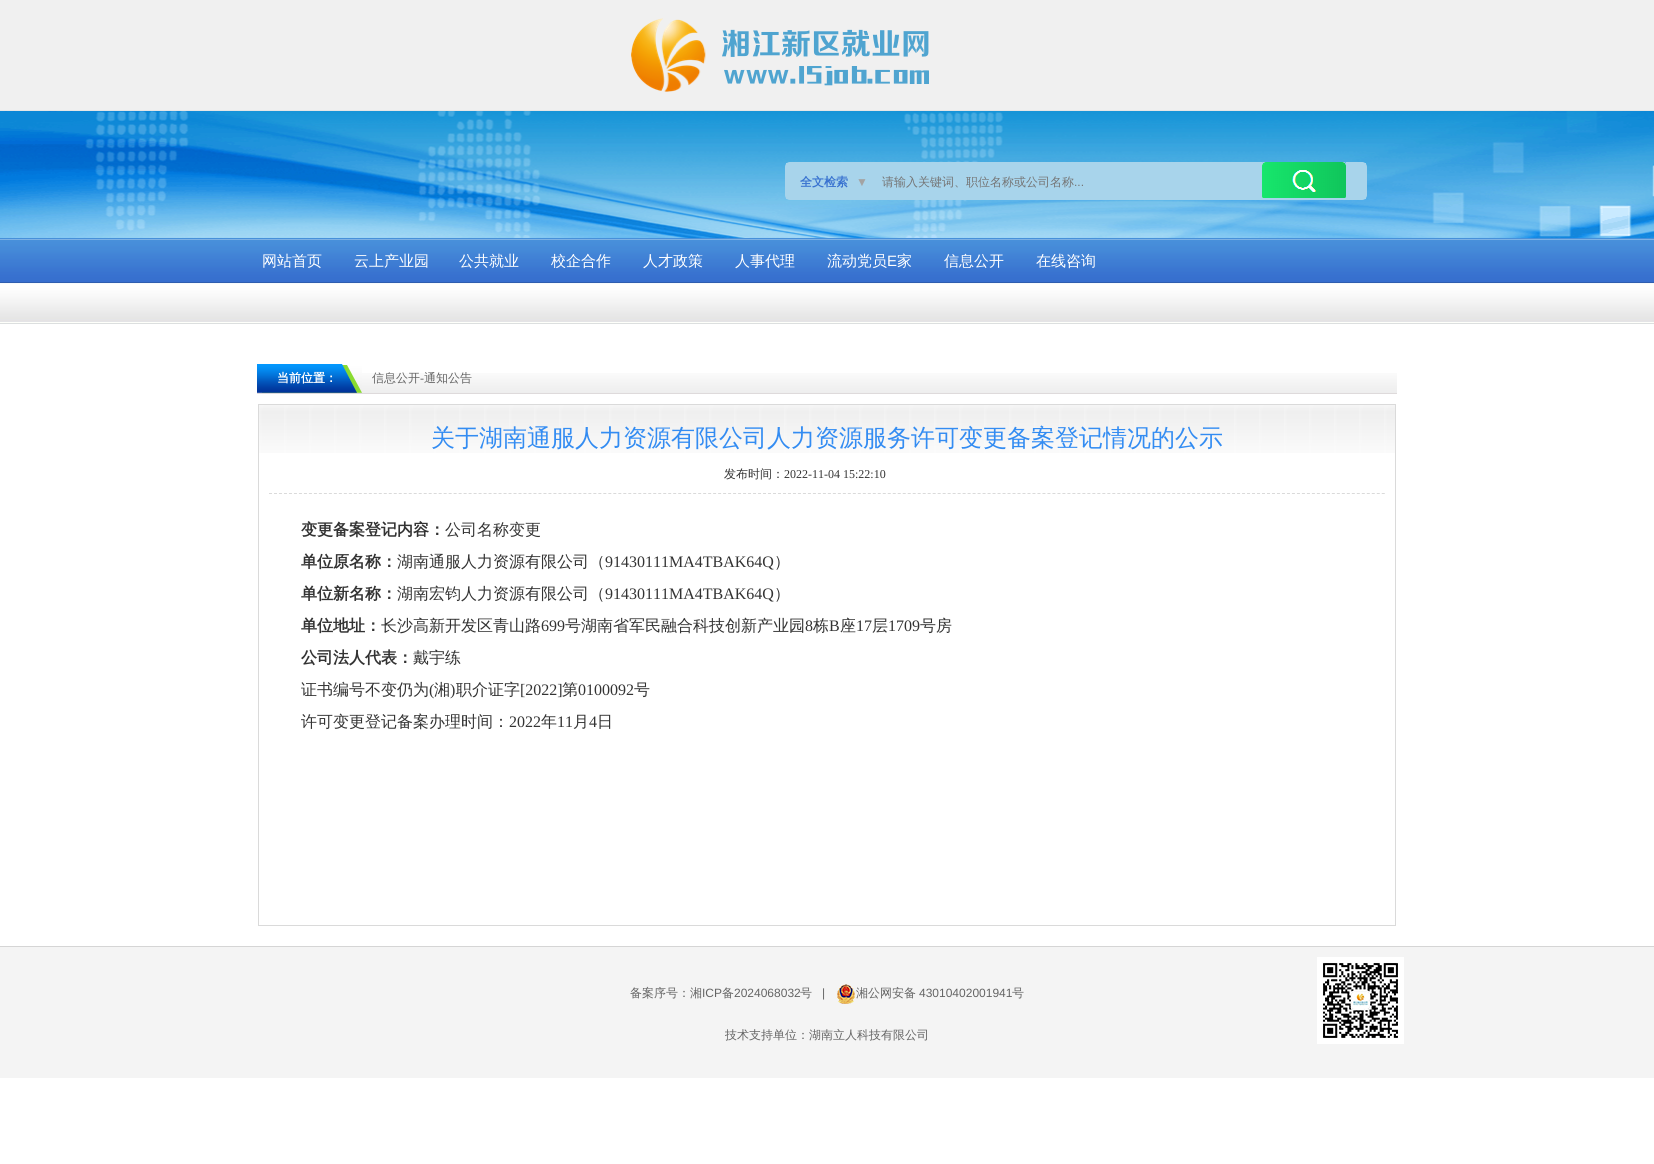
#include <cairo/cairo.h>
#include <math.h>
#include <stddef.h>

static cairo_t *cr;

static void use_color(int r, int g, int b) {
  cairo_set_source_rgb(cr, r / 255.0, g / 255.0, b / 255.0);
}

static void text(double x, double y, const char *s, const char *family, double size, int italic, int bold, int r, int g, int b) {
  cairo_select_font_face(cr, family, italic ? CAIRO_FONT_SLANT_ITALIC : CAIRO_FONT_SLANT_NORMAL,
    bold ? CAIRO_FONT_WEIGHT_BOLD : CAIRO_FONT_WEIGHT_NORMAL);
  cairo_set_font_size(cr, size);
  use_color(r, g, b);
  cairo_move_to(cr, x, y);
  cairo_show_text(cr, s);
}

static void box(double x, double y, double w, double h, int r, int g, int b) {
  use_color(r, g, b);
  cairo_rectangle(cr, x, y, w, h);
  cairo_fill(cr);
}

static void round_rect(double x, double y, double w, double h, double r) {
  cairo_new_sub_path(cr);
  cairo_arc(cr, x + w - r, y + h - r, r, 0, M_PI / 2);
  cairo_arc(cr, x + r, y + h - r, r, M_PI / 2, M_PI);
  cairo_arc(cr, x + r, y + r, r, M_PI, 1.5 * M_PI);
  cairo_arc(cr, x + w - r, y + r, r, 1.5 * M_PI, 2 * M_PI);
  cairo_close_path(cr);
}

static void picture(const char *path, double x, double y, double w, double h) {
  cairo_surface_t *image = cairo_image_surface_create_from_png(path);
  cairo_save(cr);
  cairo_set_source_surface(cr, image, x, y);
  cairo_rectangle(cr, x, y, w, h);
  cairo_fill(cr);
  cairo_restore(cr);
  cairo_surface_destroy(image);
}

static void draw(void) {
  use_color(255, 255, 255);
  cairo_paint(cr);
  box(0, 0, 1654, 110, 240, 240, 240);
  box(0, 110, 1654, 1, 230, 230, 230);
  picture("img_01.png", 631, 18, 298, 74);
  picture("img_02.png", 0, 111, 1654, 127);
  round_rect(785.5, 162.5, 581, 37, 4.5);
  use_color(168, 212, 235);
  cairo_set_line_width(cr, 1);
  cairo_stroke(cr);
  box(786, 163, 580, 36, 168, 212, 235);
  picture("img_03.png", 1262, 162, 84, 36);
  picture("img_04.png", 0, 238, 1654, 86);
  picture("img_05.png", 257, 373, 1140, 21);
  picture("img_06.png", 257, 364, 105, 29);
  picture("img_07.png", 259, 405, 1136, 48);
  cairo_rectangle(cr, 258.5, 404.5, 1137, 521);
  use_color(218, 218, 218);
  cairo_stroke(cr);
  cairo_new_path(cr);
  cairo_move_to(cr, 269, 493.5);
  cairo_line_to(cr, 1385, 493.5);
  cairo_set_dash(cr, (double[]){3, 1.99}, 2, 0);
  cairo_stroke(cr);
  box(0, 947, 1654, 131, 244, 244, 244);
  box(0, 946, 1654, 1, 213, 213, 213);
  picture("img_08.png", 837, 984, 18, 20);
  picture("img_09.png", 1317, 957, 87, 87);
  text(800, 186, "全文检索", "WenQuanYi Zen Hei", 12, 0, 1, 57, 115, 208);
  text(856, 186, "▼", "Liberation Serif", 12, 0, 0, 163, 163, 163);
  text(882, 186, "请输入关键词、职位名称或公司名称", "WenQuanYi Zen Hei Medium", 12, 0, 0, 117, 117, 117);
  text(1074, 186, "...", "Liberation Sans", 12, 0, 0, 117, 117, 117);
  text(262, 266, "网站首页", "WenQuanYi Zen Hei Medium", 15, 0, 0, 255, 255, 255);
  text(354, 266, "云上产业园", "WenQuanYi Zen Hei Medium", 15, 0, 0, 255, 255, 255);
  text(459, 266, "公共就业", "WenQuanYi Zen Hei Medium", 15, 0, 0, 255, 255, 255);
  text(551, 266, "校企合作", "WenQuanYi Zen Hei Medium", 15, 0, 0, 255, 255, 255);
  text(643, 266, "人才政策", "WenQuanYi Zen Hei Medium", 15, 0, 0, 255, 255, 255);
  text(735, 266, "人事代理", "WenQuanYi Zen Hei Medium", 15, 0, 0, 255, 255, 255);
  text(827, 266, "流动党员", "WenQuanYi Zen Hei Medium", 15, 0, 0, 255, 255, 255);
  text(887, 266, "E", "Liberation Sans", 15, 0, 0, 255, 255, 255);
  text(897, 266, "家", "WenQuanYi Zen Hei Medium", 15, 0, 0, 255, 255, 255);
  text(944, 266, "信息公开", "WenQuanYi Zen Hei Medium", 15, 0, 0, 255, 255, 255);
  text(1036, 266, "在线咨询", "WenQuanYi Zen Hei Medium", 15, 0, 0, 255, 255, 255);
  text(277, 382, "当前位置：", "WenQuanYi Zen Hei", 12, 0, 1, 255, 255, 255);
  text(372, 382, "信息公开", "WenQuanYi Zen Hei Medium", 12, 0, 0, 100, 100, 100);
  text(420, 382, "-", "Liberation Serif", 12, 0, 0, 100, 100, 100);
  text(424, 382, "通知公告", "WenQuanYi Zen Hei Medium", 12, 0, 0, 100, 100, 100);
  text(431, 446, "关于湖南通服人力资源有限公司人力资源服务许可变更备案登记情况的公示", "WenQuanYi Zen Hei Medium", 24, 0, 0, 51, 140, 242);
  text(724, 478, "发布时间：", "WenQuanYi Zen Hei Medium", 12, 0, 0, 51, 51, 51);
  text(784, 478, "2022-11-04 15:22:10", "Liberation Serif", 12, 0, 0, 51, 51, 51);
  text(301, 535, "变更备案登记内容：", "WenQuanYi Zen Hei", 16, 0, 1, 51, 51, 51);
  text(445, 535, "公司名称变更", "WenQuanYi Zen Hei Medium", 16, 0, 0, 51, 51, 51);
  text(301, 567, "单位原名称：", "WenQuanYi Zen Hei", 16, 0, 1, 51, 51, 51);
  text(397, 567, "湖南通服人力资源有限公司（", "WenQuanYi Zen Hei Medium", 16, 0, 0, 51, 51, 51);
  text(605, 567, "91430111MA4TBAK64Q", "Liberation Serif", 16, 0, 0, 51, 51, 51);
  text(774, 567, "）", "WenQuanYi Zen Hei Medium", 16, 0, 0, 51, 51, 51);
  text(301, 599, "单位新名称：", "WenQuanYi Zen Hei", 16, 0, 1, 51, 51, 51);
  text(397, 599, "湖南宏钧人力资源有限公司（", "WenQuanYi Zen Hei Medium", 16, 0, 0, 51, 51, 51);
  text(605, 599, "91430111MA4TBAK64Q", "Liberation Serif", 16, 0, 0, 51, 51, 51);
  text(774, 599, "）", "WenQuanYi Zen Hei Medium", 16, 0, 0, 51, 51, 51);
  text(301, 631, "单位地址：", "WenQuanYi Zen Hei", 16, 0, 1, 51, 51, 51);
  text(381, 631, "长沙高新开发区青山路", "WenQuanYi Zen Hei Medium", 16, 0, 0, 51, 51, 51);
  text(541, 631, "699", "Liberation Serif", 16, 0, 0, 51, 51, 51);
  text(565, 631, "号湖南省军民融合科技创新产业园", "WenQuanYi Zen Hei Medium", 16, 0, 0, 51, 51, 51);
  text(805, 631, "8", "Liberation Serif", 16, 0, 0, 51, 51, 51);
  text(813, 631, "栋", "WenQuanYi Zen Hei Medium", 16, 0, 0, 51, 51, 51);
  text(829, 631, "B", "Liberation Serif", 16, 0, 0, 51, 51, 51);
  text(840, 631, "座", "WenQuanYi Zen Hei Medium", 16, 0, 0, 51, 51, 51);
  text(856, 631, "17", "Liberation Serif", 16, 0, 0, 51, 51, 51);
  text(872, 631, "层", "WenQuanYi Zen Hei Medium", 16, 0, 0, 51, 51, 51);
  text(888, 631, "1709", "Liberation Serif", 16, 0, 0, 51, 51, 51);
  text(920, 631, "号房", "WenQuanYi Zen Hei Medium", 16, 0, 0, 51, 51, 51);
  text(301, 663, "公司法人代表：", "WenQuanYi Zen Hei", 16, 0, 1, 51, 51, 51);
  text(413, 663, "戴宇练", "WenQuanYi Zen Hei Medium", 16, 0, 0, 51, 51, 51);
  text(301, 695, "证书编号不变仍为", "WenQuanYi Zen Hei Medium", 16, 0, 0, 51, 51, 51);
  text(429, 695, "(", "Liberation Serif", 16, 0, 0, 51, 51, 51);
  text(434, 695, "湘", "WenQuanYi Zen Hei Medium", 16, 0, 0, 51, 51, 51);
  text(450, 695, ")", "Liberation Serif", 16, 0, 0, 51, 51, 51);
  text(456, 695, "职介证字", "WenQuanYi Zen Hei Medium", 16, 0, 0, 51, 51, 51);
  text(520, 695, "[2022]", "Liberation Serif", 16, 0, 0, 51, 51, 51);
  text(562, 695, "第", "WenQuanYi Zen Hei Medium", 16, 0, 0, 51, 51, 51);
  text(578, 695, "0100092", "Liberation Serif", 16, 0, 0, 51, 51, 51);
  text(634, 695, "号", "WenQuanYi Zen Hei Medium", 16, 0, 0, 51, 51, 51);
  text(301, 727, "许可变更登记备案办理时间：", "WenQuanYi Zen Hei Medium", 16, 0, 0, 51, 51, 51);
  text(509, 727, "2022", "Liberation Serif", 16, 0, 0, 51, 51, 51);
  text(541, 727, "年", "WenQuanYi Zen Hei Medium", 16, 0, 0, 51, 51, 51);
  text(557, 727, "11", "Liberation Serif", 16, 0, 0, 51, 51, 51);
  text(573, 727, "月", "WenQuanYi Zen Hei Medium", 16, 0, 0, 51, 51, 51);
  text(589, 727, "4", "Liberation Serif", 16, 0, 0, 51, 51, 51);
  text(597, 727, "日", "WenQuanYi Zen Hei Medium", 16, 0, 0, 51, 51, 51);
  text(630, 997, "备案序号：湘", "WenQuanYi Zen Hei Medium", 12, 0, 0, 100, 100, 100);
  text(702, 997, "ICP", "Liberation Sans", 12, 0, 0, 100, 100, 100);
  text(722, 997, "备", "WenQuanYi Zen Hei Medium", 12, 0, 0, 100, 100, 100);
  text(734, 997, "2024068032", "Liberation Sans", 12, 0, 0, 100, 100, 100);
  text(800, 997, "号", "WenQuanYi Zen Hei Medium", 12, 0, 0, 100, 100, 100);
  text(822, 997, "|", "Liberation Sans", 12, 0, 0, 100, 100, 100);
  text(856, 997, "湘公网安备", "WenQuanYi Zen Hei Medium", 12, 0, 0, 100, 100, 100);
  text(919, 997, "43010402001941", "Liberation Sans", 12, 0, 0, 100, 100, 100);
  text(1012, 997, "号", "WenQuanYi Zen Hei Medium", 12, 0, 0, 100, 100, 100);
  text(725, 1039, "技术支持单位：湖南立人科技有限公司", "WenQuanYi Zen Hei Medium", 12, 0, 0, 100, 100, 100);
}

int main(void) {
  cairo_surface_t *surface = cairo_image_surface_create(CAIRO_FORMAT_RGB24, 1654, 1164);
  cr = cairo_create(surface);
  cairo_font_options_t *options = cairo_font_options_create();
  cairo_font_options_set_hint_metrics(options, CAIRO_HINT_METRICS_OFF);
  cairo_font_options_set_hint_style(options, CAIRO_HINT_STYLE_NONE);
  cairo_set_font_options(cr, options);
  cairo_set_miter_limit(cr, 4);
  draw();
  cairo_surface_write_to_png(surface, "out.png");
  cairo_font_options_destroy(options);
  cairo_destroy(cr);
  cairo_surface_destroy(surface);
  return 0;
}
